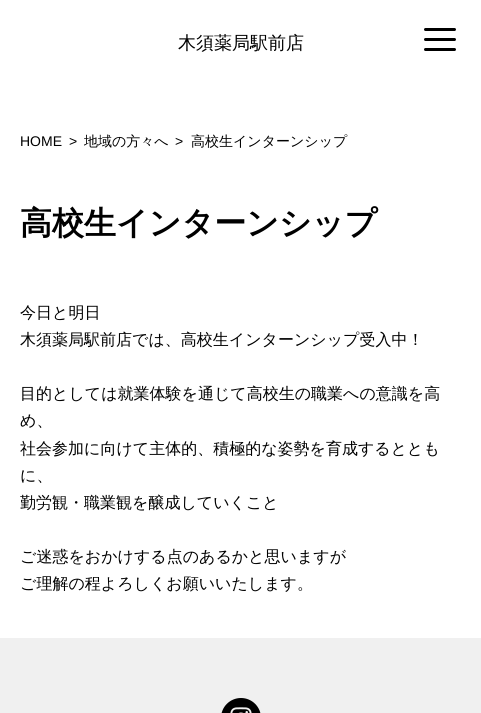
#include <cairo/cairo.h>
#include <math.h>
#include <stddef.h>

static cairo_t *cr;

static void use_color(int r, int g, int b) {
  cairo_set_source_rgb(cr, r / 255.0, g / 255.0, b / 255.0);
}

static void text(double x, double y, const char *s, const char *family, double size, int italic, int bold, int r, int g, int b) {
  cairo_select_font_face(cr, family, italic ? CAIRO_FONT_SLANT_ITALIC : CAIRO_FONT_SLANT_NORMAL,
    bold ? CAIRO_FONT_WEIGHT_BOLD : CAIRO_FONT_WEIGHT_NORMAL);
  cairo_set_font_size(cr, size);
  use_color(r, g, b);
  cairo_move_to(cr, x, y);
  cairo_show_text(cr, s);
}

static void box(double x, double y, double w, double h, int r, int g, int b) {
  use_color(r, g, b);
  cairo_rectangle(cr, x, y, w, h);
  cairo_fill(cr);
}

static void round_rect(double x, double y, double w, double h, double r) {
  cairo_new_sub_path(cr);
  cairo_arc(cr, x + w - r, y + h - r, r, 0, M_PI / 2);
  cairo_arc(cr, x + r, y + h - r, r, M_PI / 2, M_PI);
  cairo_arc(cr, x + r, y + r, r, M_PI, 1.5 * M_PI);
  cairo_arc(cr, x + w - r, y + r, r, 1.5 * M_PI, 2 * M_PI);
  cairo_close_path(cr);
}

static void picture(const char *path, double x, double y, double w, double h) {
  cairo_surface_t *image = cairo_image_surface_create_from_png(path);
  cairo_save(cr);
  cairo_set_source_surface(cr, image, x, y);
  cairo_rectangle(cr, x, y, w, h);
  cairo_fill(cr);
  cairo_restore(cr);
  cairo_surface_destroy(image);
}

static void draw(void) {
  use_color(255, 255, 255);
  cairo_paint(cr);
  use_color(0, 0, 0);
  round_rect(424, 28, 32, 3, 1.5);
  cairo_fill(cr);
  round_rect(424, 38, 32, 3, 1.5);
  cairo_fill(cr);
  round_rect(424, 48, 32, 3, 1.5);
  cairo_fill(cr);
  box(0, 638, 481, 75, 240, 240, 240);
  picture("img_01.png", 221, 698, 40, 15);
  text(178, 49, "木須薬局駅前店", "WenQuanYi Zen Hei Medium", 18, 0, 0, 0, 0, 0);
  text(20, 146, "HOME", "Liberation Sans", 14, 0, 0, 0, 0, 0);
  text(69, 146, ">", "Liberation Sans", 14, 0, 0, 0, 0, 0);
  text(84, 146, "地域の方々へ", "WenQuanYi Zen Hei Medium", 14, 0, 0, 0, 0, 0);
  text(175, 146, ">", "Liberation Sans", 14, 0, 0, 0, 0, 0);
  text(191, 146, "高校生インターンシップ", "WenQuanYi Zen Hei Medium", 14, 0, 0, 0, 0, 0);
  text(20, 234, "高校生インターンシップ", "WenQuanYi Zen Hei", 32, 0, 1, 0, 0, 0);
  text(20, 318, "今日と明日", "WenQuanYi Zen Hei Medium", 16, 0, 0, 0, 0, 0);
  text(20, 345, "木須薬局駅前店では、高校生インターンシップ受入中！", "WenQuanYi Zen Hei Medium", 16, 0, 0, 0, 0, 0);
  text(20, 399, "目的としては就業体験を通じて高校生の職業への意識を高", "WenQuanYi Zen Hei Medium", 16, 0, 0, 0, 0, 0);
  text(20, 426, "め、", "WenQuanYi Zen Hei Medium", 16, 0, 0, 0, 0, 0);
  text(20, 454, "社会参加に向けて主体的、積極的な姿勢を育成するととも", "WenQuanYi Zen Hei Medium", 16, 0, 0, 0, 0, 0);
  text(20, 481, "に、", "WenQuanYi Zen Hei Medium", 16, 0, 0, 0, 0, 0);
  text(20, 508, "勤労観・職業観を醸成していくこと", "WenQuanYi Zen Hei Medium", 16, 0, 0, 0, 0, 0);
  text(20, 562, "ご迷惑をおかけする点のあるかと思いますが", "WenQuanYi Zen Hei Medium", 16, 0, 0, 0, 0, 0);
  text(20, 589, "ご理解の程よろしくお願いいたします。", "WenQuanYi Zen Hei Medium", 16, 0, 0, 0, 0, 0);
}

int main(void) {
  cairo_surface_t *surface = cairo_image_surface_create(CAIRO_FORMAT_RGB24, 481, 713);
  cr = cairo_create(surface);
  cairo_font_options_t *options = cairo_font_options_create();
  cairo_font_options_set_hint_metrics(options, CAIRO_HINT_METRICS_OFF);
  cairo_font_options_set_hint_style(options, CAIRO_HINT_STYLE_NONE);
  cairo_set_font_options(cr, options);
  cairo_set_miter_limit(cr, 4);
  draw();
  cairo_surface_write_to_png(surface, "out.png");
  cairo_font_options_destroy(options);
  cairo_destroy(cr);
  cairo_surface_destroy(surface);
  return 0;
}
